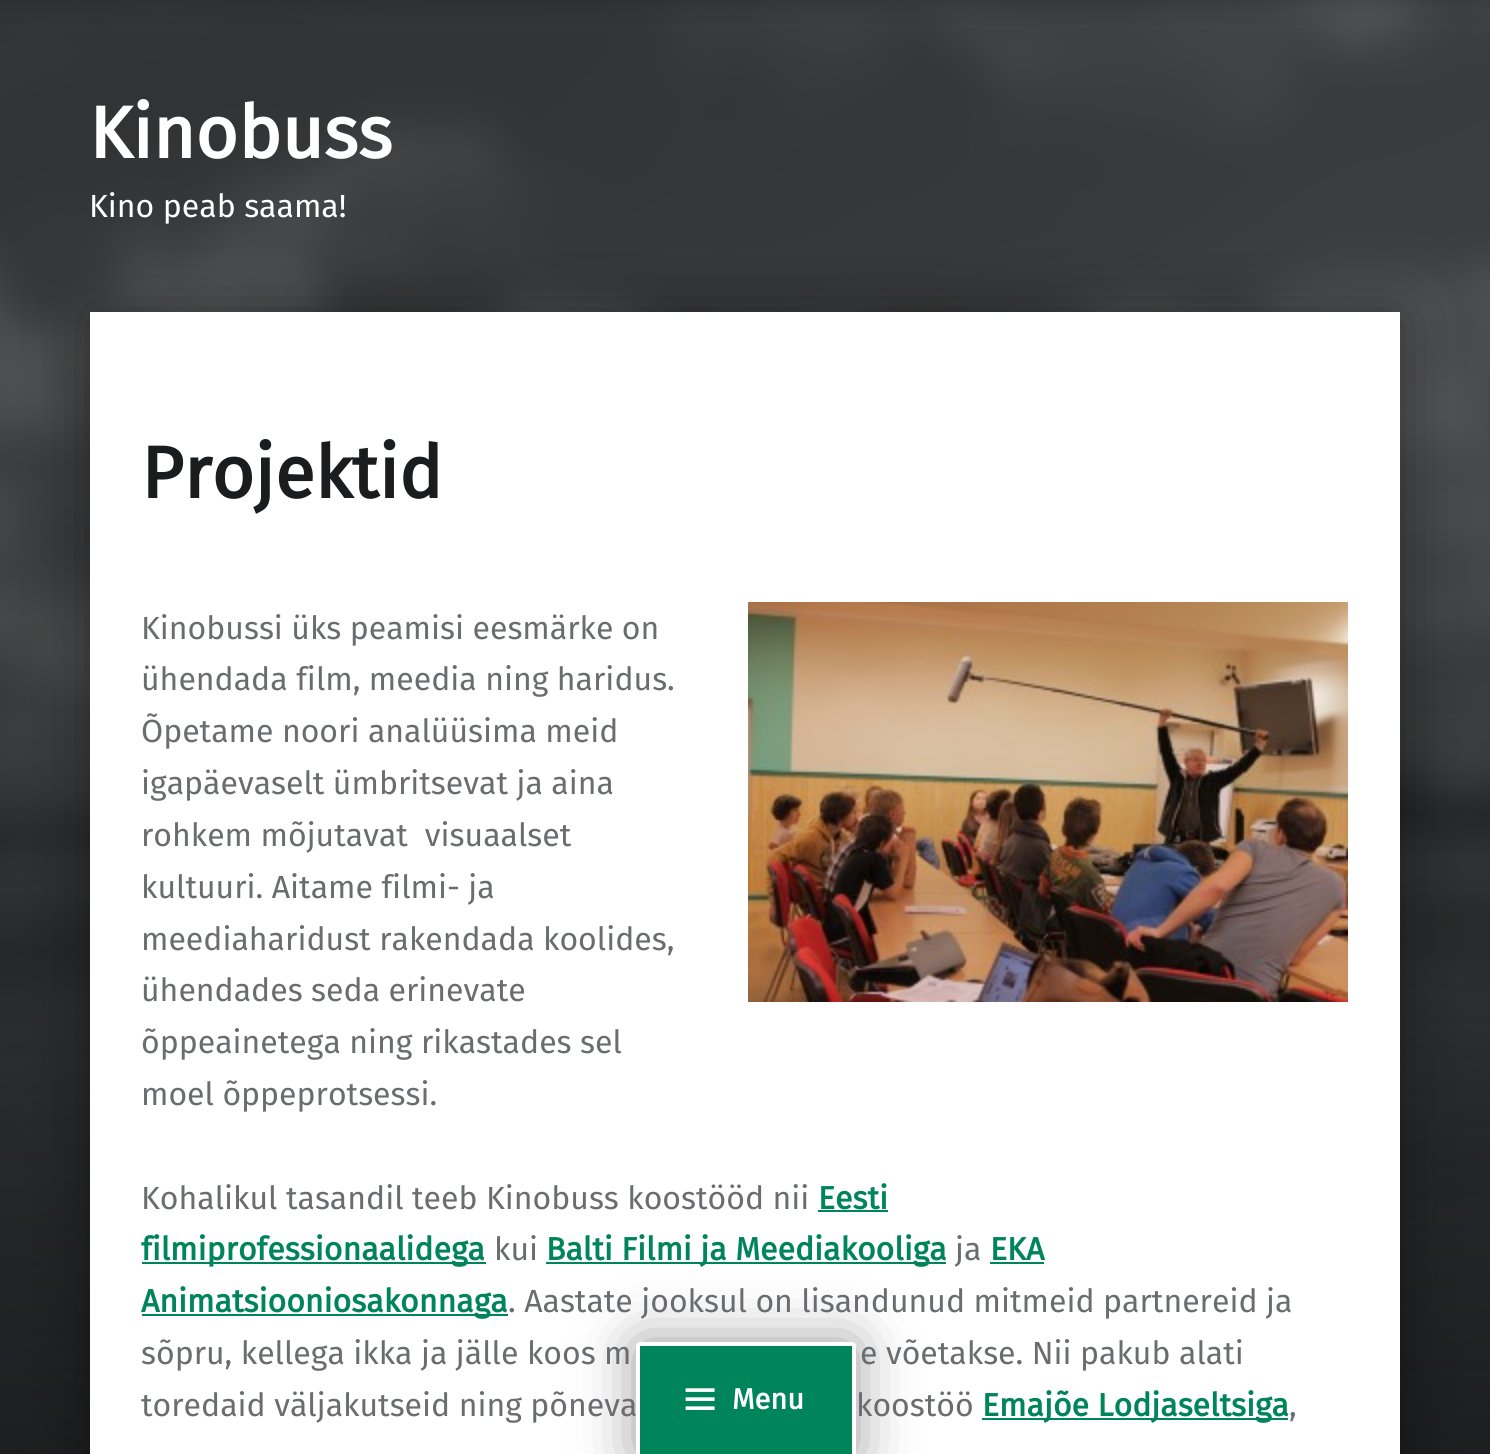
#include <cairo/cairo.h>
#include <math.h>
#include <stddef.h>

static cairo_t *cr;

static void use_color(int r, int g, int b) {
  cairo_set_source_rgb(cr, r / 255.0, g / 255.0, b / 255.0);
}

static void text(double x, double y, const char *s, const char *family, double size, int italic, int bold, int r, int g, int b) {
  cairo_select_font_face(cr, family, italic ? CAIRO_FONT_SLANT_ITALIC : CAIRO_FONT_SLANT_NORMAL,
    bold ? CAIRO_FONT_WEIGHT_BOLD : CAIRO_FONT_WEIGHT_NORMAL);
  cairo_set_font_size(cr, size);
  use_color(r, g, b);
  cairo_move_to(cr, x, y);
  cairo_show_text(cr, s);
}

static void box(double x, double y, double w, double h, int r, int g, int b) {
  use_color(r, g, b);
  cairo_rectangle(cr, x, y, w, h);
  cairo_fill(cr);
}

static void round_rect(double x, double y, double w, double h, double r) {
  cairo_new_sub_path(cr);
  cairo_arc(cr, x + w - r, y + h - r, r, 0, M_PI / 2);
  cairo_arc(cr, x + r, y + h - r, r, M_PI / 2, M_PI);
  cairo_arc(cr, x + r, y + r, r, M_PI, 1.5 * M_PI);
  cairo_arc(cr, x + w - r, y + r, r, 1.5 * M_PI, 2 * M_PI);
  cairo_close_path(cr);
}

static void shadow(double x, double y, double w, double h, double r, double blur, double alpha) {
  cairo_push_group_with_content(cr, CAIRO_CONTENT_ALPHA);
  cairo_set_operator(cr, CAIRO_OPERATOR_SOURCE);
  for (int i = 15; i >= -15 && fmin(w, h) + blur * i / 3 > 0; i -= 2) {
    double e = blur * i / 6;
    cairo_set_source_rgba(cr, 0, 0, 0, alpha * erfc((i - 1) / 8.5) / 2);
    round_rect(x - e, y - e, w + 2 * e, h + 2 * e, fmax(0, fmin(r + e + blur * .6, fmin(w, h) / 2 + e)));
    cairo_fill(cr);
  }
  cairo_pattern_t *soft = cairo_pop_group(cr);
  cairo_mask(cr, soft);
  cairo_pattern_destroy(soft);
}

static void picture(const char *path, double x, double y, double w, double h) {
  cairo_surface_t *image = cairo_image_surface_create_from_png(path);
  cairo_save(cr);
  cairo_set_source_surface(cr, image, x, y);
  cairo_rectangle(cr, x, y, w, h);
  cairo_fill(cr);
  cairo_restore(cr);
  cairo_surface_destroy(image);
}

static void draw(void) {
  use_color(255, 255, 255);
  cairo_paint(cr);
  picture("img_01.png", 0, 0, 1490, 25);
  picture("img_02.png", 0, 0, 1490, 1454);
  use_color(0, 0, 0);
  shadow(90, 312, 1310, 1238, 0, 32, 0.4);
  box(90, 312, 1310, 1142, 255, 255, 255);
  box(546, 1262, 400, 2, 0, 133, 91);
  use_color(0, 0, 0);
  shadow(636, 1342, 220, 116, 4, 29, 0.4);
  use_color(0, 133, 91);
  round_rect(638, 1344, 216, 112, 2);
  cairo_fill_preserve(cr);
  use_color(255, 255, 255);
  cairo_set_line_width(cr, 4);
  cairo_stroke(cr);
  picture("img_03.png", 685, 1388, 30, 22);
  picture("img_04.png", 748, 602, 600, 400);
  box(818, 1210, 70, 2, 0, 133, 91);
  box(142, 1262, 344, 2, 0, 133, 91);
  box(990, 1262, 54, 2, 0, 133, 91);
  box(142, 1314, 366, 2, 0, 133, 91);
  box(982, 1418, 306, 2, 0, 133, 91);
  text(89, 158, "Kinobuss", "Fira Sans", 73, 0, 1, 255, 255, 255);
  text(89, 217, "Kino peab saama!", "Fira Sans", 32, 0, 0, 255, 255, 255);
  text(732, 1409, "Menu", "Fira Sans", 29, 0, 1, 255, 255, 255);
  text(141, 498, "Projektid", "Fira Sans", 73, 0, 1, 26, 28, 30);
  text(141, 639, "Kinobussi üks peamisi eesmärke on", "Fira Sans", 32, 0, 0, 106, 108, 110);
  text(141, 690, "ühendada film, meedia ning haridus.", "Fira Sans", 32, 0, 0, 106, 108, 110);
  text(141, 742, "Õpetame noori analüüsima meid", "Fira Sans", 32, 0, 0, 106, 108, 110);
  text(141, 794, "igapäevaselt ümbritsevat ja aina", "Fira Sans", 32, 0, 0, 106, 108, 110);
  text(141, 846, "rohkem mõjutavat  visuaalset", "Fira Sans", 32, 0, 0, 106, 108, 110);
  text(141, 898, "kultuuri. Aitame filmi- ja", "Fira Sans", 32, 0, 0, 106, 108, 110);
  text(141, 950, "meediaharidust rakendada koolides,", "Fira Sans", 32, 0, 0, 106, 108, 110);
  text(141, 1001, "ühendades seda erinevate", "Fira Sans", 32, 0, 0, 106, 108, 110);
  text(141, 1053, "õppeainetega ning rikastades sel", "Fira Sans", 32, 0, 0, 106, 108, 110);
  text(141, 1105, "moel õppeprotsessi.", "Fira Sans", 32, 0, 0, 106, 108, 110);
  text(141, 1209, "Kohalikul tasandil teeb Kinobuss koostööd nii", "Fira Sans", 32, 0, 0, 106, 108, 110);
  text(818, 1209, "Eesti", "Fira Sans", 32, 0, 1, 0, 133, 91);
  text(141, 1260, "filmiprofessionaalidega", "Fira Sans", 32, 0, 1, 0, 133, 91);
  text(494, 1260, "kui", "Fira Sans", 32, 0, 0, 106, 108, 110);
  text(546, 1260, "Balti Filmi ja Meediakooliga", "Fira Sans", 32, 0, 1, 0, 133, 91);
  text(955, 1260, "ja", "Fira Sans", 32, 0, 0, 106, 108, 110);
  text(990, 1260, "EKA", "Fira Sans", 32, 0, 1, 0, 133, 91);
  text(141, 1312, "Animatsiooniosakonnaga", "Fira Sans", 32, 0, 1, 0, 133, 91);
  text(508, 1312, ". Aastate jooksul on lisandunud mitmeid partnereid ja", "Fira Sans", 32, 0, 0, 106, 108, 110);
  text(141, 1364, "sõpru, kellega ikka ja jälle koos m", "Fira Sans", 32, 0, 0, 106, 108, 110);
  text(860, 1364, "e võetakse. Nii pakub alati", "Fira Sans", 32, 0, 0, 106, 108, 110);
  text(141, 1416, "toredaid väljakutseid ning põneva", "Fira Sans", 32, 0, 0, 106, 108, 110);
  text(856, 1416, "koostöö", "Fira Sans", 32, 0, 0, 106, 108, 110);
  text(982, 1416, "Emajõe Lodjaseltsiga", "Fira Sans", 32, 0, 1, 0, 133, 91);
  text(1289, 1416, ",", "Fira Sans", 32, 0, 0, 106, 108, 110);
}

int main(void) {
  cairo_surface_t *surface = cairo_image_surface_create(CAIRO_FORMAT_RGB24, 1490, 1454);
  cr = cairo_create(surface);
  cairo_font_options_t *options = cairo_font_options_create();
  cairo_font_options_set_hint_metrics(options, CAIRO_HINT_METRICS_OFF);
  cairo_font_options_set_hint_style(options, CAIRO_HINT_STYLE_NONE);
  cairo_set_font_options(cr, options);
  cairo_set_miter_limit(cr, 4);
  draw();
  cairo_surface_write_to_png(surface, "out.png");
  cairo_font_options_destroy(options);
  cairo_destroy(cr);
  cairo_surface_destroy(surface);
  return 0;
}
